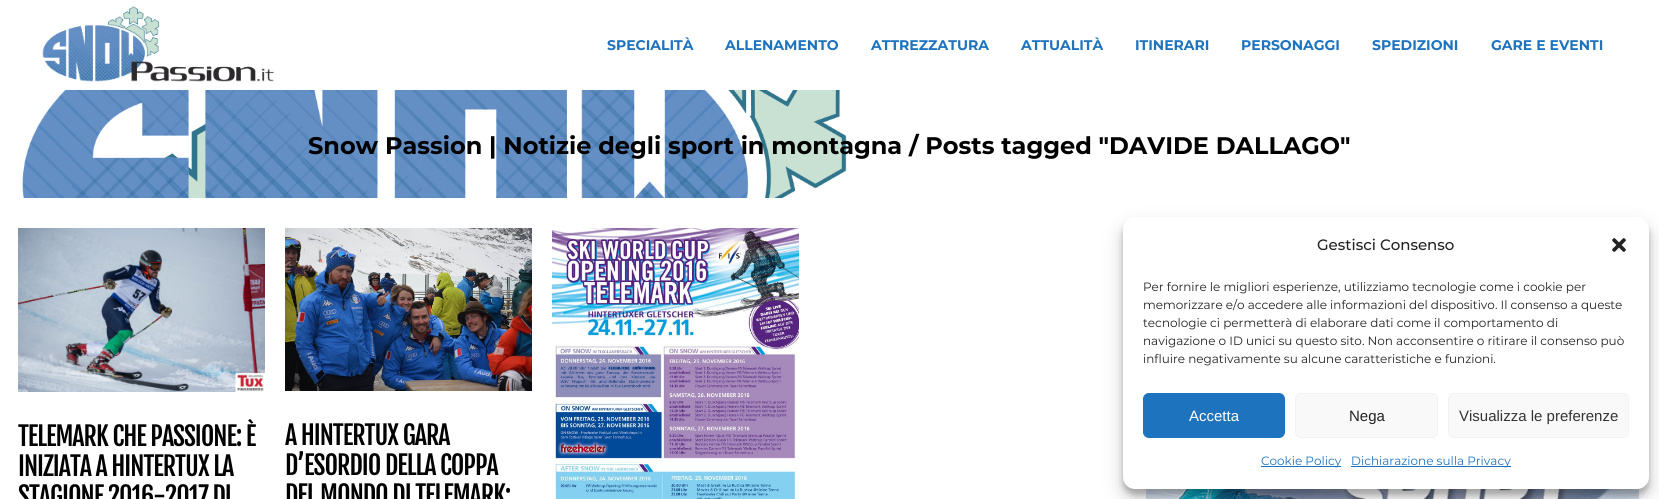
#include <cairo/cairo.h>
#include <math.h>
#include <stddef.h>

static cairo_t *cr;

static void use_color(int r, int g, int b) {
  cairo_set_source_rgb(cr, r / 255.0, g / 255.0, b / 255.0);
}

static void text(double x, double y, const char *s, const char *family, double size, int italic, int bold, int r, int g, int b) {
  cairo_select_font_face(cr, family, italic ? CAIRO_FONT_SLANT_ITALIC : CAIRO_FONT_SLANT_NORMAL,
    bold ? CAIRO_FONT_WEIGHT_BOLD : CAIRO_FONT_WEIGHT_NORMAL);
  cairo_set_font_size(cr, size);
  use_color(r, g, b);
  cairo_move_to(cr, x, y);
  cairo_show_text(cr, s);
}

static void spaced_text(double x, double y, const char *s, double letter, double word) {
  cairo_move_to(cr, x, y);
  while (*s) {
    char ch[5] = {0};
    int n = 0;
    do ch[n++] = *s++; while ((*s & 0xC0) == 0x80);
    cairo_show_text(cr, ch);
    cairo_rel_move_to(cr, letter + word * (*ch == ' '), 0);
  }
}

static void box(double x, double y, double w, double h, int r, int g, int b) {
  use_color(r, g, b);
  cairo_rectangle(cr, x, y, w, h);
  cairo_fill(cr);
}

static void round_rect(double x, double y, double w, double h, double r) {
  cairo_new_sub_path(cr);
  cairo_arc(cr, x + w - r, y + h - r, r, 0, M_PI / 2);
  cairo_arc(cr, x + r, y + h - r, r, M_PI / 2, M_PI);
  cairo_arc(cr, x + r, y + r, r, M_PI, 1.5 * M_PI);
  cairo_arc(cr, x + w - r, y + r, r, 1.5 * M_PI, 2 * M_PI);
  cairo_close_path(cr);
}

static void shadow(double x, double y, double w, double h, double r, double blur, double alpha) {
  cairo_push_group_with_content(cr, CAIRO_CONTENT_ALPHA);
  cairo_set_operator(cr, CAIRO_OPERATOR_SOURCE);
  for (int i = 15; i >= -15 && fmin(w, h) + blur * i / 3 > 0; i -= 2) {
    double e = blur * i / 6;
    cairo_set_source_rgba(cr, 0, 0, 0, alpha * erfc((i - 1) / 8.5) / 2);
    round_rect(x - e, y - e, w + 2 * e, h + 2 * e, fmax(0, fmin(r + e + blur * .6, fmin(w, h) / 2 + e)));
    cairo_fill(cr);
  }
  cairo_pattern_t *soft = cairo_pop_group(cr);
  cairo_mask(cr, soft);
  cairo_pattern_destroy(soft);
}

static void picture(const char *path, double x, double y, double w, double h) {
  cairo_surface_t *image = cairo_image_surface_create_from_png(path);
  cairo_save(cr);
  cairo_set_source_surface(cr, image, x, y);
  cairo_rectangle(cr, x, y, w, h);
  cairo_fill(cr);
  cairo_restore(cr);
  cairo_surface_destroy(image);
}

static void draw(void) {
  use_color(255, 255, 255);
  cairo_paint(cr);
  picture("img_01.png", 42, 6, 232, 76);
  picture("img_02.png", 163, 123, 43, 75);
  picture("img_03.png", 22, 90, 825, 108);
  picture("img_04.png", 18, 228, 247, 164);
  picture("img_05.png", 285, 228, 247, 163);
  picture("img_06.png", 552, 228, 247, 271);
  picture("img_07.png", 1146, 488, 493, 11);
  use_color(0, 0, 0);
  shadow(1123, 223, 526, 272, 12, 3, 0.23);
  shadow(1123, 227, 526, 272, 12, 10, 0.19);
  use_color(255, 255, 255);
  round_rect(1123, 217, 526, 272, 12);
  cairo_fill(cr);
  picture("img_08.png", 1612, 238, 14, 14);
  use_color(30, 115, 190);
  round_rect(1143.5, 393.5, 141, 44, 5.5);
  cairo_fill_preserve(cr);
  cairo_set_line_width(cr, 1);
  cairo_stroke(cr);
  use_color(249, 249, 249);
  round_rect(1295.5, 393.5, 142, 44, 5.5);
  cairo_fill_preserve(cr);
  use_color(242, 242, 242);
  cairo_stroke(cr);
  use_color(249, 249, 249);
  round_rect(1448.5, 393.5, 180, 44, 5.5);
  cairo_fill_preserve(cr);
  use_color(242, 242, 242);
  cairo_stroke(cr);
  box(1261, 466, 80, 1, 30, 115, 190);
  box(1351, 466, 160, 1, 30, 115, 190);
  text(607, 50, "SPECIALITÀ", "Montserrat", 14, 0, 1, 30, 115, 190);
  text(725, 50, "ALLENAMENTO", "Montserrat", 14, 0, 1, 30, 115, 190);
  text(871, 50, "ATTREZZATURA", "Montserrat", 14, 0, 1, 30, 115, 190);
  text(1021, 50, "ATTUALITÀ", "Montserrat", 14, 0, 1, 30, 115, 190);
  text(1135, 50, "ITINERARI", "Montserrat", 14, 0, 1, 30, 115, 190);
  text(1241, 50, "PERSONAGGI", "Montserrat", 14, 0, 1, 30, 115, 190);
  text(1372, 50, "SPEDIZIONI", "Montserrat", 14, 0, 1, 30, 115, 190);
  text(1491, 50, "GARE E EVENTI", "Montserrat", 14, 0, 1, 30, 115, 190);
  text(308, 154, "Snow Passion | Notizie degli sport in montagna / Posts tagged \"DAVIDE DALLAGO\"", "Montserrat", 24, 0, 1, 0, 0, 0);
  cairo_select_font_face(cr, "Fjalla One", CAIRO_FONT_SLANT_NORMAL, CAIRO_FONT_WEIGHT_NORMAL);
  cairo_set_font_size(cr, 26);
  spaced_text(18, 446, "TELEMARK CHE PASSIONE: È", -1, 0);
  spaced_text(18, 476, "INIZIATA A HINTERTUX LA", -1, 0);
  spaced_text(18, 506, "STAGIONE 2016-2017 DI", -1, 0);
  spaced_text(285, 445, "A HINTERTUX GARA", -1, 0);
  spaced_text(285, 475, "D’ESORDIO DELLA COPPA", -1, 0);
  spaced_text(285, 505, "DEL MONDO DI TELEMARK:", -1, 0);
  text(1317, 250, "Gestisci Consenso", "Montserrat Medium", 15, 0, 0, 34, 34, 34);
  text(1143, 291, "Per fornire le migliori esperienze, utilizziamo tecnologie come i cookie per", "Montserrat", 12, 0, 0, 34, 34, 34);
  text(1143, 309, "memorizzare e/o accedere alle informazioni del dispositivo. Il consenso a queste", "Montserrat", 12, 0, 0, 34, 34, 34);
  text(1143, 327, "tecnologie ci permetterà di elaborare dati come il comportamento di", "Montserrat", 12, 0, 0, 34, 34, 34);
  text(1143, 345, "navigazione o ID unici su questo sito. Non acconsentire o ritirare il consenso può", "Montserrat", 12, 0, 0, 34, 34, 34);
  text(1143, 363, "influire negativamente su alcune caratteristiche e funzioni.", "Montserrat", 12, 0, 0, 34, 34, 34);
  text(1189, 421, "Accetta", "Liberation Sans", 15, 0, 0, 255, 255, 255);
  text(1349, 421, "Nega", "Liberation Sans", 15, 0, 0, 34, 34, 34);
  text(1459, 421, "Visualizza le preferenze", "Liberation Sans", 15, 0, 0, 51, 51, 51);
  text(1261, 465, "Cookie Policy", "Montserrat", 12, 0, 0, 30, 115, 190);
  text(1351, 465, "Dichiarazione sulla Privacy", "Montserrat", 12, 0, 0, 30, 115, 190);
}

int main(void) {
  cairo_surface_t *surface = cairo_image_surface_create(CAIRO_FORMAT_RGB24, 1659, 499);
  cr = cairo_create(surface);
  cairo_font_options_t *options = cairo_font_options_create();
  cairo_font_options_set_hint_metrics(options, CAIRO_HINT_METRICS_OFF);
  cairo_font_options_set_hint_style(options, CAIRO_HINT_STYLE_NONE);
  cairo_set_font_options(cr, options);
  cairo_set_miter_limit(cr, 4);
  draw();
  cairo_surface_write_to_png(surface, "out.png");
  cairo_font_options_destroy(options);
  cairo_destroy(cr);
  cairo_surface_destroy(surface);
  return 0;
}
